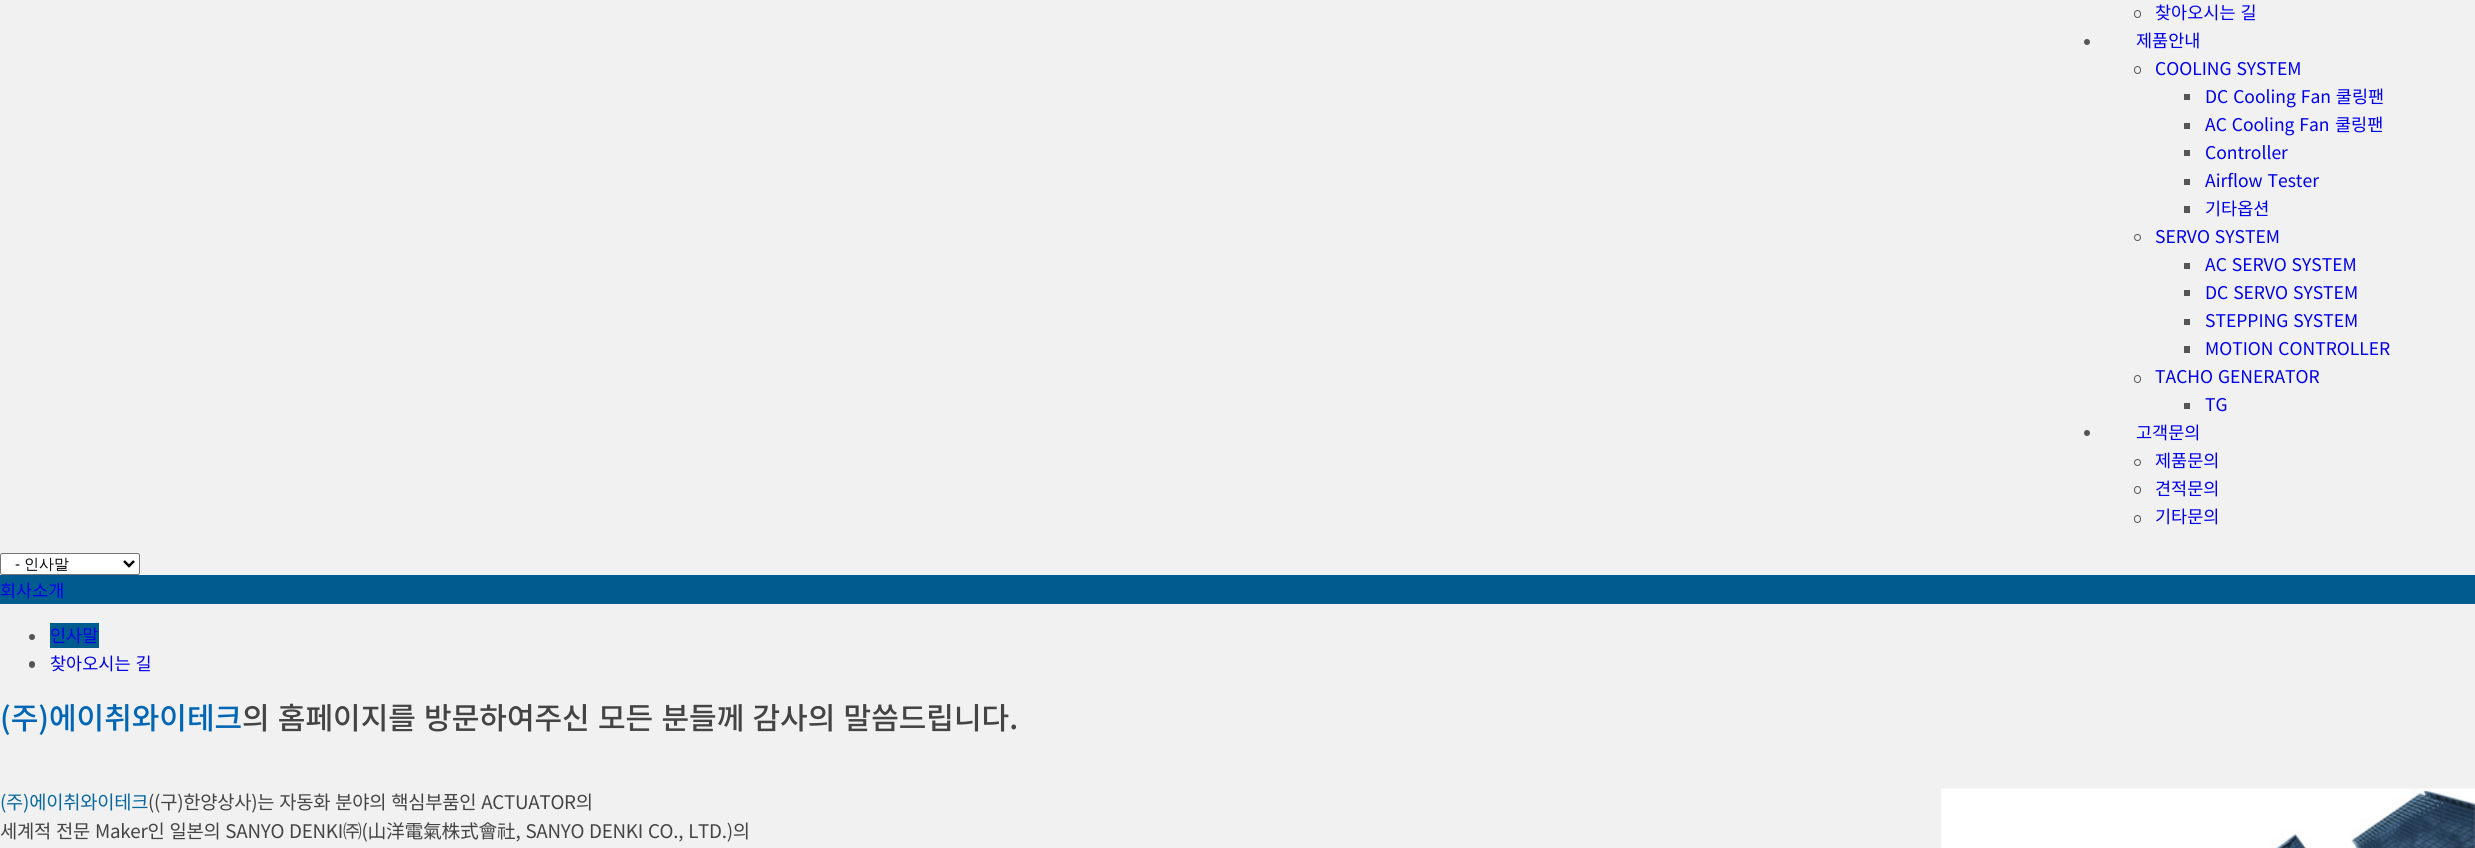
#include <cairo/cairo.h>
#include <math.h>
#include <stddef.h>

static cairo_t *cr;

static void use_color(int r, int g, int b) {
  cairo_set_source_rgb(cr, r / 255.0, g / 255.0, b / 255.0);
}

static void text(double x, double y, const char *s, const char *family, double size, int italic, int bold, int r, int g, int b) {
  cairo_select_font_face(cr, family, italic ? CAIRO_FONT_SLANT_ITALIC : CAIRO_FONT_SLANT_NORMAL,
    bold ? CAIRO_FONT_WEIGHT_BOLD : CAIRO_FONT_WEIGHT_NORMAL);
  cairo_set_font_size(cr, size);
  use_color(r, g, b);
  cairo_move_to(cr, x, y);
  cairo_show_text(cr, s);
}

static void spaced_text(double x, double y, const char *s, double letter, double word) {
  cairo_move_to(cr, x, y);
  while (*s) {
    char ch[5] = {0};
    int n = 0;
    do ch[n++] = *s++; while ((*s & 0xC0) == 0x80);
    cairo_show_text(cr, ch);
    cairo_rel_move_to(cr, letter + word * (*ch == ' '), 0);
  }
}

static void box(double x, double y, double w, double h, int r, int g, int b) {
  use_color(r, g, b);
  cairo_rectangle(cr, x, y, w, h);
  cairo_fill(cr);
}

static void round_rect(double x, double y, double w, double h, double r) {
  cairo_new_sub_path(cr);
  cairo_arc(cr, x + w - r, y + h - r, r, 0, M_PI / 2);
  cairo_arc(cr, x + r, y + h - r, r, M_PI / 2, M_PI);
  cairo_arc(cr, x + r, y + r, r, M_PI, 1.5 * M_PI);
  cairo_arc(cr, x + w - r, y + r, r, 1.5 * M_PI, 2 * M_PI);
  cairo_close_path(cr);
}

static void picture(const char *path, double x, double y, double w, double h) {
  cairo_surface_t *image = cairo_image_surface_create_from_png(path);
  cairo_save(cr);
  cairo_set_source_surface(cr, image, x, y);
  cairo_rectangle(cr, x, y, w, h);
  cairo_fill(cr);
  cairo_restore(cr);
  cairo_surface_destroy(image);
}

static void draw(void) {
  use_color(241, 241, 241);
  cairo_paint(cr);
  round_rect(2134.5, 10.5, 6, 7, 3);
  use_color(85, 85, 85);
  cairo_set_line_width(cr, 1);
  cairo_stroke(cr);
  cairo_arc(cr, 2087, 42, 3, 0, 2 * M_PI);
  cairo_fill(cr);
  round_rect(2134.5, 66.5, 6, 7, 3);
  cairo_stroke(cr);
  box(2184, 94, 6, 6, 85, 85, 85);
  box(2184, 123, 6, 6, 85, 85, 85);
  box(2184, 150, 6, 6, 85, 85, 85);
  box(2184, 179, 6, 6, 85, 85, 85);
  box(2184, 206, 6, 7, 85, 85, 85);
  cairo_arc(cr, 2137.5, 237.5, 3, 0, 2 * M_PI);
  cairo_stroke(cr);
  box(2184, 263, 6, 6, 85, 85, 85);
  box(2184, 290, 6, 6, 85, 85, 85);
  box(2184, 319, 6, 6, 85, 85, 85);
  box(2184, 346, 6, 7, 85, 85, 85);
  round_rect(2134.5, 375.5, 6, 7, 3);
  cairo_stroke(cr);
  box(2184, 403, 6, 6, 85, 85, 85);
  cairo_arc(cr, 2087, 433, 3, 0, 2 * M_PI);
  cairo_fill(cr);
  cairo_arc(cr, 2137.5, 462.5, 3, 0, 2 * M_PI);
  cairo_stroke(cr);
  round_rect(2134.5, 486.5, 6, 7, 3);
  cairo_stroke(cr);
  round_rect(2134.5, 515.5, 6, 7, 3);
  cairo_stroke(cr);
  use_color(255, 255, 255);
  round_rect(0.5, 553.5, 139, 21, 2);
  cairo_fill_preserve(cr);
  use_color(118, 118, 118);
  cairo_stroke(cr);
  cairo_new_path(cr);
  cairo_move_to(cr, 124, 561);
  cairo_line_to(cr, 129, 566);
  cairo_line_to(cr, 134, 561);
  use_color(0, 0, 0);
  cairo_set_line_width(cr, 2.5);
  cairo_stroke(cr);
  box(0, 575, 2475, 29, 0, 91, 143);
  use_color(85, 85, 85);
  cairo_arc(cr, 32, 637, 3, 0, 2 * M_PI);
  cairo_fill(cr);
  box(50, 623, 49, 25, 0, 91, 143);
  use_color(85, 85, 85);
  round_rect(29, 661, 6, 7, 3);
  cairo_fill(cr);
  picture("img_01.png", 1941, 788, 534, 60);
  cairo_select_font_face(cr, "Noto Sans KR", CAIRO_FONT_SLANT_NORMAL, CAIRO_FONT_WEIGHT_NORMAL);
  cairo_set_font_size(cr, 17.5);
  use_color(0, 0, 238);
  spaced_text(2155, 19, "찾아오시는 길", 0, 1);
  text(2136, 47, "제품안내", "Noto Sans KR", 17.5, 0, 0, 0, 0, 238);
  spaced_text(2155, 75, "COOLING SYSTEM", 0, 1);
  spaced_text(2205, 103, "DC Cooling Fan 쿨링팬", 0, 1);
  spaced_text(2205, 131, "AC Cooling Fan", 0, 1);
  text(2335, 131, "쿨링팬", "Noto Sans KR", 17.5, 0, 0, 0, 0, 238);
  text(2205, 159, "Controller", "Noto Sans KR", 17.5, 0, 0, 0, 0, 238);
  spaced_text(2205, 187, "Airflow Tester", 0, 1);
  text(2205, 215, "기타옵션", "Noto Sans KR", 17.5, 0, 0, 0, 0, 238);
  spaced_text(2155, 243, "SERVO SYSTEM", 0, 1);
  spaced_text(2205, 271, "AC SERVO SYSTEM", 0, 1);
  spaced_text(2205, 299, "DC SERVO SYSTEM", 0, 1);
  spaced_text(2205, 327, "STEPPING SYSTEM", 0, 1);
  spaced_text(2205, 355, "MOTION CONTROLLER", 0, 1);
  spaced_text(2155, 383, "TACHO GENERATOR", 0, 1);
  text(2205, 411, "TG", "Noto Sans KR", 17.5, 0, 0, 0, 0, 238);
  text(2136, 439, "고객문의", "Noto Sans KR", 17.5, 0, 0, 0, 0, 238);
  text(2155, 467, "제품문의", "Noto Sans KR", 17.5, 0, 0, 0, 0, 238);
  text(2155, 495, "견적문의", "Noto Sans KR", 17.5, 0, 0, 0, 0, 238);
  text(2155, 523, "기타문의", "Noto Sans KR", 17.5, 0, 0, 0, 0, 238);
  text(15, 569, "-", "Liberation Sans", 15, 0, 0, 0, 0, 0);
  text(24, 569, "인사말", "WenQuanYi Zen Hei Medium", 15, 0, 0, 0, 0, 0);
  text(0, 597, "회사소개", "Noto Sans KR", 17.5, 0, 0, 0, 0, 238);
  text(50, 642, "인사말", "Noto Sans KR", 17.5, 0, 0, 0, 0, 238);
  spaced_text(50, 670, "찾아오시는 길", 0, 1);
  text(0, 729, "(주)에이취와이테크", "Noto Sans KR Medium", 30, 0, 0, 0, 102, 181);
  use_color(68, 68, 68);
  spaced_text(242, 729, "의 홈페이지를 방문하여주신 모든 분들께 감사의 말씀드립니다.", 0, 1.5);
  cairo_select_font_face(cr, "Noto Sans KR", CAIRO_FONT_SLANT_NORMAL, CAIRO_FONT_WEIGHT_NORMAL);
  cairo_set_font_size(cr, 18.75);
  use_color(7, 104, 159);
  spaced_text(0, 809, "(주)에이취와이테크", -0.25, 0);
  use_color(68, 68, 68);
  spaced_text(148, 809, "((구)한양상사)는 자동화 분야의 핵심부품인 ACTUATOR의", -0.25, 1);
  spaced_text(0, 838, "세계적 전문 Maker인 일본의 SANYO DENKI㈜(山洋電氣株式會社, SANYO DENKI CO., LTD.)의", -0.25, 1);
}

int main(void) {
  cairo_surface_t *surface = cairo_image_surface_create(CAIRO_FORMAT_RGB24, 2475, 848);
  cr = cairo_create(surface);
  cairo_font_options_t *options = cairo_font_options_create();
  cairo_font_options_set_hint_metrics(options, CAIRO_HINT_METRICS_OFF);
  cairo_font_options_set_hint_style(options, CAIRO_HINT_STYLE_NONE);
  cairo_set_font_options(cr, options);
  cairo_set_miter_limit(cr, 4);
  draw();
  cairo_surface_write_to_png(surface, "out.png");
  cairo_font_options_destroy(options);
  cairo_destroy(cr);
  cairo_surface_destroy(surface);
  return 0;
}
